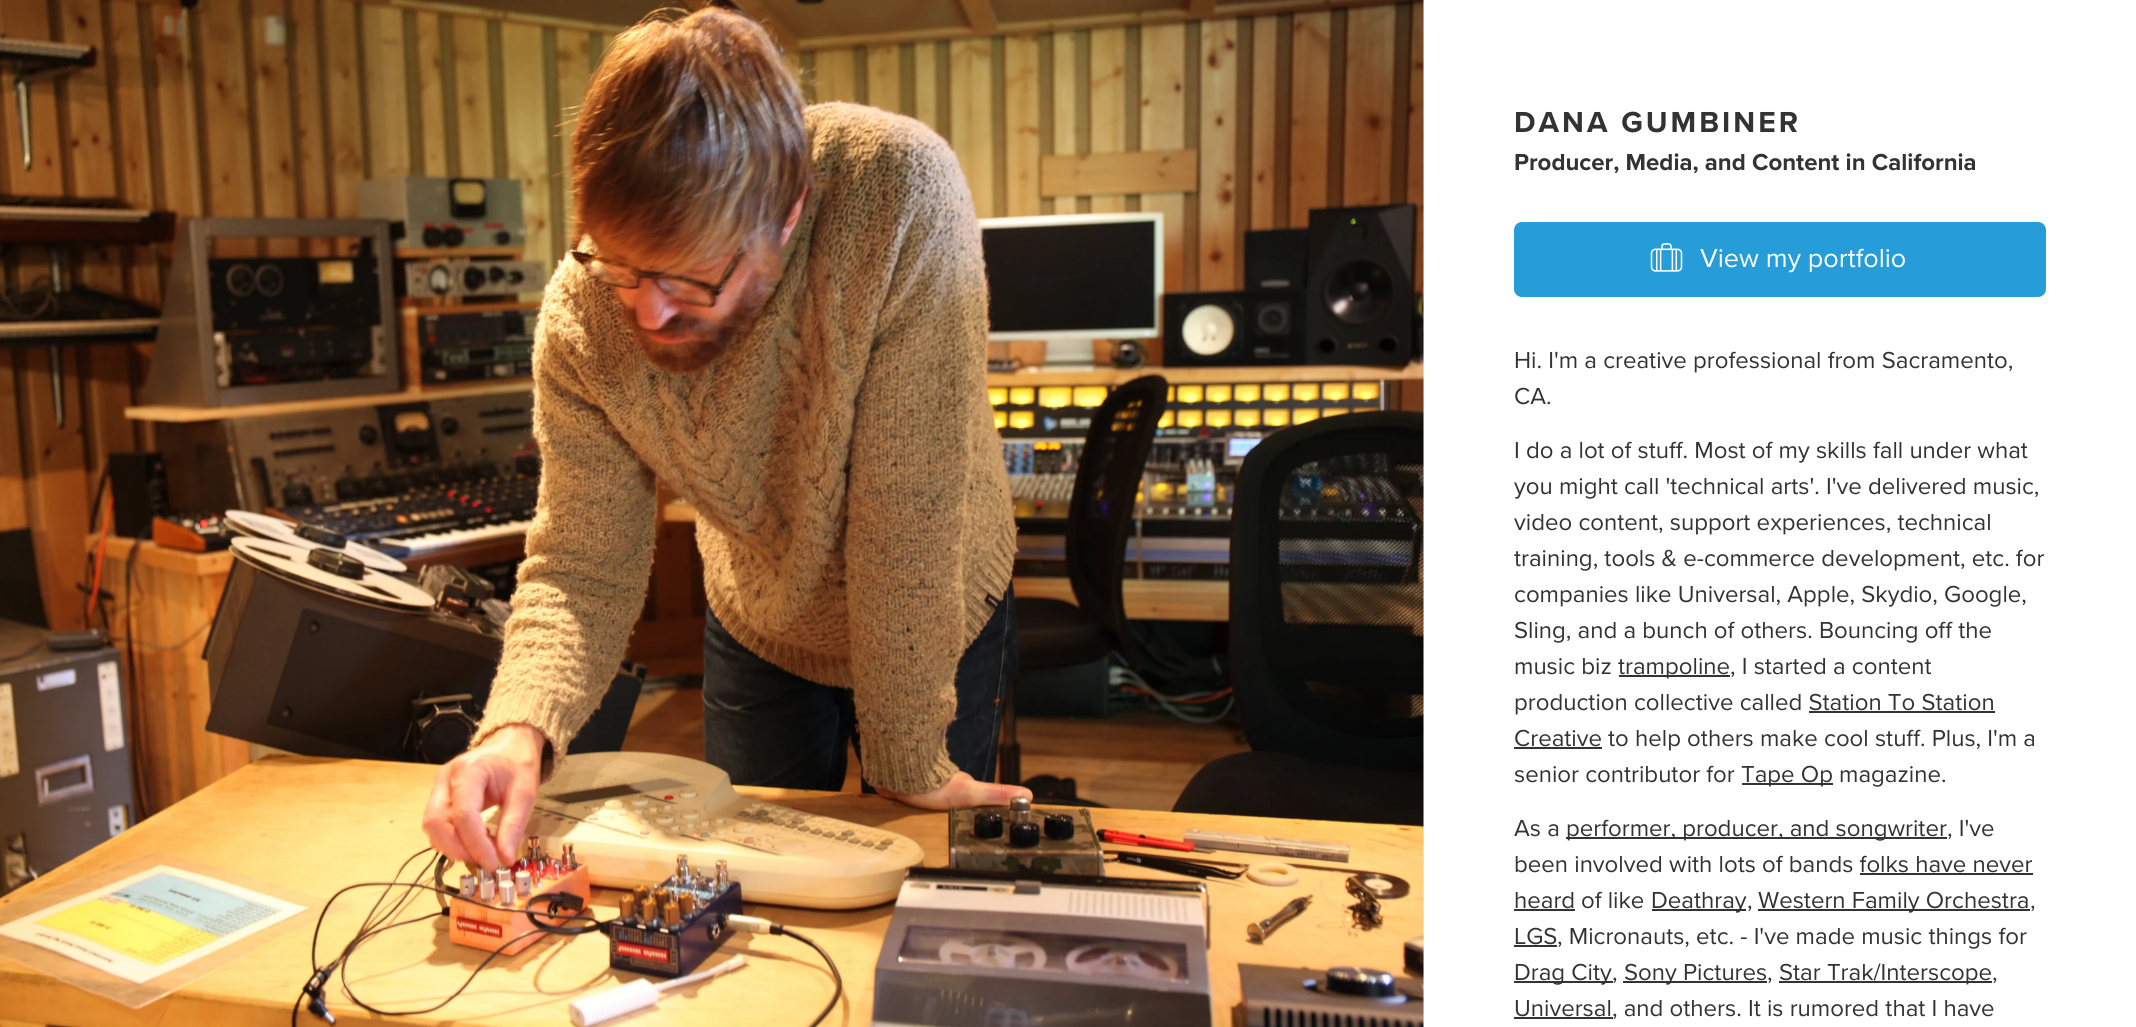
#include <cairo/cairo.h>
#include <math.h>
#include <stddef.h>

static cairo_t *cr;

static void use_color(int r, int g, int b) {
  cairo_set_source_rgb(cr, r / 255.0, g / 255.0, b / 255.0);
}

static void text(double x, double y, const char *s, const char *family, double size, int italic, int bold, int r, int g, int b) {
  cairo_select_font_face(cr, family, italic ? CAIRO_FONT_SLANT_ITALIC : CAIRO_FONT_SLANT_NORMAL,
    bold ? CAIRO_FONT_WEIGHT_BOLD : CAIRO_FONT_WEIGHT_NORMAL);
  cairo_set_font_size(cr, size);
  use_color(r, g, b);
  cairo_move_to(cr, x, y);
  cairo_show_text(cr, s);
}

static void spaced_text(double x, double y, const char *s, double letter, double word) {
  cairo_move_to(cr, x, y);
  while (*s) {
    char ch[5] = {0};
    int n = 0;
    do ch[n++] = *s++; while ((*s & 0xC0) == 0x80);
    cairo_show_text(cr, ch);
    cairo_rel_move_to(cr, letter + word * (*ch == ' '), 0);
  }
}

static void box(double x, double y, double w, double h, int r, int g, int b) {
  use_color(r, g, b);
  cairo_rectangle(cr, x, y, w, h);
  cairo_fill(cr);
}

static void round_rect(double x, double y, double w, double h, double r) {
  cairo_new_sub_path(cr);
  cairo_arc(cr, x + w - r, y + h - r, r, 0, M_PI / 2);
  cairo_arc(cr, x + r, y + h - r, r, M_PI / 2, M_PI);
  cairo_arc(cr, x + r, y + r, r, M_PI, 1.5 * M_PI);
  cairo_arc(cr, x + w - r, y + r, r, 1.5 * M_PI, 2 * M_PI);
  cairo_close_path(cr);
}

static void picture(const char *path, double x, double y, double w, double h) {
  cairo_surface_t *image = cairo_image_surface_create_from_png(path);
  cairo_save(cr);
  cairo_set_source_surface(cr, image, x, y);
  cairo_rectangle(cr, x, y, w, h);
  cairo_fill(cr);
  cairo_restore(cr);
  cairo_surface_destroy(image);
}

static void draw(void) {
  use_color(255, 255, 255);
  cairo_paint(cr);
  box(1423, 0, 1, 1027, 238, 238, 238);
  picture("img_01.png", 0, 0, 1424, 1027);
  use_color(38, 157, 217);
  round_rect(1515, 223, 530, 73, 7);
  cairo_fill_preserve(cr);
  cairo_stroke(cr);
  picture("img_02.png", 1650, 243, 33, 29);
  box(1619, 675, 111, 2, 51, 51, 51);
  box(1809, 711, 186, 2, 51, 51, 51);
  box(1514, 747, 88, 2, 51, 51, 51);
  box(1742, 783, 91, 2, 51, 51, 51);
  box(1566, 837, 381, 2, 51, 51, 51);
  box(1860, 873, 173, 2, 51, 51, 51);
  box(1514, 909, 61, 2, 51, 51, 51);
  box(1652, 909, 94, 2, 51, 51, 51);
  box(1758, 909, 272, 2, 51, 51, 51);
  box(1514, 945, 43, 2, 51, 51, 51);
  box(1514, 981, 99, 2, 51, 51, 51);
  box(1623, 981, 144, 2, 51, 51, 51);
  box(1779, 981, 213, 2, 51, 51, 51);
  box(1514, 1017, 99, 2, 51, 51, 51);
  cairo_select_font_face(cr, "Proxima Nova", CAIRO_FONT_SLANT_NORMAL, CAIRO_FONT_WEIGHT_BOLD);
  cairo_set_font_size(cr, 30);
  spaced_text(1514, 132, "DANA GUMBINER", 3, 0);
  text(1514, 170, "Producer, Media, and Content in California", "Proxima Nova", 24, 0, 1, 51, 51, 51);
  text(1700, 267, "View my portfolio", "Proxima Nova", 27, 0, 0, 255, 255, 255);
  text(1514, 368, "Hi. I'm a creative professional from Sacramento,", "Proxima Nova", 24, 0, 0, 51, 51, 51);
  text(1514, 404, "CA.", "Proxima Nova", 24, 0, 0, 51, 51, 51);
  text(1514, 458, "I do a lot of stuff. Most of my skills fall under what", "Proxima Nova", 24, 0, 0, 51, 51, 51);
  text(1514, 494, "you might call 'technical arts'. I've delivered music,", "Proxima Nova", 24, 0, 0, 51, 51, 51);
  text(1514, 530, "video content, support experiences, technical", "Proxima Nova", 24, 0, 0, 51, 51, 51);
  text(1514, 566, "training, tools & e-commerce development, etc. for", "Proxima Nova", 24, 0, 0, 51, 51, 51);
  text(1514, 602, "companies like Universal, Apple, Skydio, Google,", "Proxima Nova", 24, 0, 0, 51, 51, 51);
  text(1514, 638, "Sling, and a bunch of others. Bouncing off the", "Proxima Nova", 24, 0, 0, 51, 51, 51);
  text(1514, 674, "music biz", "Proxima Nova", 24, 0, 0, 51, 51, 51);
  text(1618, 674, "trampoline", "Proxima Nova", 24, 0, 0, 51, 51, 51);
  text(1730, 674, ", I started a content", "Proxima Nova", 24, 0, 0, 51, 51, 51);
  text(1514, 710, "production collective called Station To Station", "Proxima Nova", 24, 0, 0, 51, 51, 51);
  text(1514, 746, "Creative", "Proxima Nova", 24, 0, 0, 51, 51, 51);
  text(1608, 746, "to help others make cool stuff. Plus, I'm a", "Proxima Nova", 24, 0, 0, 51, 51, 51);
  text(1514, 782, "senior contributor for", "Proxima Nova", 24, 0, 0, 51, 51, 51);
  text(1741, 782, "Tape Op", "Proxima Nova", 24, 0, 0, 51, 51, 51);
  text(1839, 782, "magazine.", "Proxima Nova", 24, 0, 0, 51, 51, 51);
  text(1514, 836, "As a", "Proxima Nova", 24, 0, 0, 51, 51, 51);
  text(1566, 836, "performer, producer, and songwriter", "Proxima Nova", 24, 0, 0, 51, 51, 51);
  text(1947, 836, ", I've", "Proxima Nova", 24, 0, 0, 51, 51, 51);
  text(1514, 872, "been involved with lots of bands folks have never", "Proxima Nova", 24, 0, 0, 51, 51, 51);
  text(1514, 908, "heard", "Proxima Nova", 24, 0, 0, 51, 51, 51);
  text(1581, 908, "of like", "Proxima Nova", 24, 0, 0, 51, 51, 51);
  text(1651, 908, "Deathray", "Proxima Nova", 24, 0, 0, 51, 51, 51);
  text(1747, 908, ",", "Proxima Nova", 24, 0, 0, 51, 51, 51);
  text(1758, 908, "Western Family Orchestra", "Proxima Nova", 24, 0, 0, 51, 51, 51);
  text(2030, 908, ",", "Proxima Nova", 24, 0, 0, 51, 51, 51);
  text(1514, 944, "LGS", "Proxima Nova", 24, 0, 0, 51, 51, 51);
  text(1557, 944, ", Micronauts, etc. - I've made music things for", "Proxima Nova", 24, 0, 0, 51, 51, 51);
  text(1514, 980, "Drag City", "Proxima Nova", 24, 0, 0, 51, 51, 51);
  text(1612, 980, ",", "Proxima Nova", 24, 0, 0, 51, 51, 51);
  text(1624, 980, "Sony Pictures", "Proxima Nova", 24, 0, 0, 51, 51, 51);
  text(1767, 980, ",", "Proxima Nova", 24, 0, 0, 51, 51, 51);
  text(1779, 980, "Star Trak/Interscope", "Proxima Nova", 24, 0, 0, 51, 51, 51);
  text(1992, 980, ",", "Proxima Nova", 24, 0, 0, 51, 51, 51);
  text(1514, 1016, "Universal", "Proxima Nova", 24, 0, 0, 51, 51, 51);
  text(1612, 1016, ", and others. It is rumored that I have", "Proxima Nova", 24, 0, 0, 51, 51, 51);
}

int main(void) {
  cairo_surface_t *surface = cairo_image_surface_create(CAIRO_FORMAT_RGB24, 2136, 1027);
  cr = cairo_create(surface);
  cairo_font_options_t *options = cairo_font_options_create();
  cairo_font_options_set_hint_metrics(options, CAIRO_HINT_METRICS_OFF);
  cairo_font_options_set_hint_style(options, CAIRO_HINT_STYLE_NONE);
  cairo_set_font_options(cr, options);
  cairo_set_miter_limit(cr, 4);
  draw();
  cairo_surface_write_to_png(surface, "out.png");
  cairo_font_options_destroy(options);
  cairo_destroy(cr);
  cairo_surface_destroy(surface);
  return 0;
}
